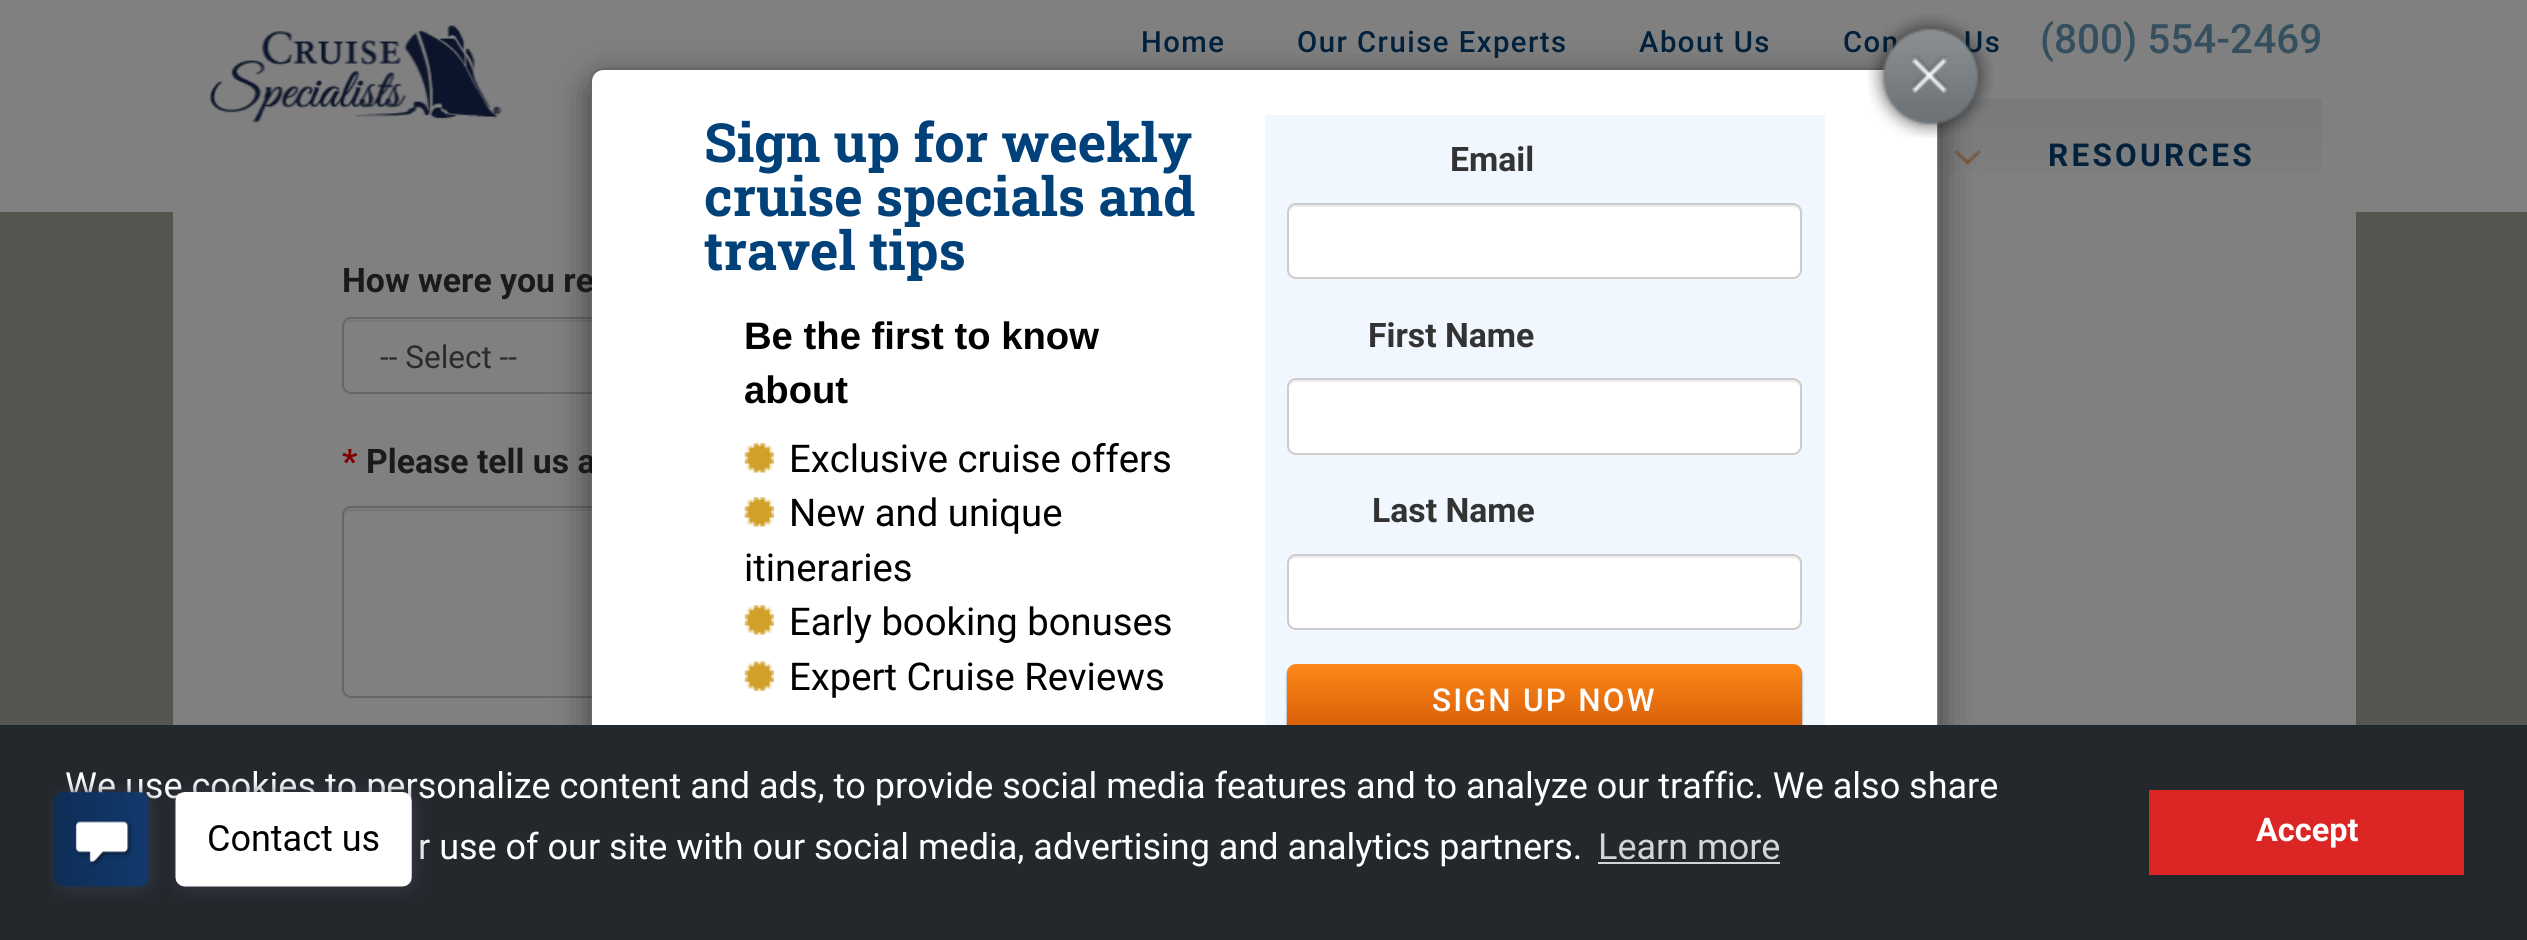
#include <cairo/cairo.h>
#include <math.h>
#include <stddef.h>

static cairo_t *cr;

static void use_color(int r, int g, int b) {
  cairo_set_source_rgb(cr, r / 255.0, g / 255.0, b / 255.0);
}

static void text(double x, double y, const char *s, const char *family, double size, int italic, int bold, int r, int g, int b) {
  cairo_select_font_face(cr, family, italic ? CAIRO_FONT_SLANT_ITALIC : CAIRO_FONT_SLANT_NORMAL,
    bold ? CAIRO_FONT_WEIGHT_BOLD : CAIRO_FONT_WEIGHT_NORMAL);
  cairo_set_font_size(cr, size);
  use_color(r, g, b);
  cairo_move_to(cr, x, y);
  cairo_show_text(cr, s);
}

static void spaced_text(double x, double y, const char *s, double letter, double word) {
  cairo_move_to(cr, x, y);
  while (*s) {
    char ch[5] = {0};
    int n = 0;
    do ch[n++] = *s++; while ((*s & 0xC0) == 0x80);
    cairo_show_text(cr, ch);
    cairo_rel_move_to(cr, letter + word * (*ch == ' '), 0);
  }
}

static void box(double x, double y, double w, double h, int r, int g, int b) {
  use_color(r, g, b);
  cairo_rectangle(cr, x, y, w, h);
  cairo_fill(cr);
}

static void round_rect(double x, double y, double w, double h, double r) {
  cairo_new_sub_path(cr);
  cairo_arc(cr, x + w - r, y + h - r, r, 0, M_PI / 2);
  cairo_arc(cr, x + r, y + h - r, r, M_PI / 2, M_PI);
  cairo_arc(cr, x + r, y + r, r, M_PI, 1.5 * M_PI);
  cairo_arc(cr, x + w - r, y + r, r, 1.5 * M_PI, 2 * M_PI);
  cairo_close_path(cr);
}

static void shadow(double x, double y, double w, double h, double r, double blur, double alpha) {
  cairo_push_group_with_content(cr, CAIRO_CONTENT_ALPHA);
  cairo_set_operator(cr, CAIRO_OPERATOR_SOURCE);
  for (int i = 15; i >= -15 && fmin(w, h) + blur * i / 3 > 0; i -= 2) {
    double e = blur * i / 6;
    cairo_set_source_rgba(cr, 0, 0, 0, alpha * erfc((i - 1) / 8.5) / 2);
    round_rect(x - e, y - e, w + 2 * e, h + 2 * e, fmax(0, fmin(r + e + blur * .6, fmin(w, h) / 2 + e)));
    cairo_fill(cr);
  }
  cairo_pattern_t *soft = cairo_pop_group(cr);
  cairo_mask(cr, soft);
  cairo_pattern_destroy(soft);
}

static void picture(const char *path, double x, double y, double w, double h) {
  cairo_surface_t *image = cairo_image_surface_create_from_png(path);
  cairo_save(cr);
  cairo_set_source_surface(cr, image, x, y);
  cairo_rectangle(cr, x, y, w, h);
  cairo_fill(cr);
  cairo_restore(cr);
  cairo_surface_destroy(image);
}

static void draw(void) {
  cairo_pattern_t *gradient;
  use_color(84, 85, 78);
  cairo_paint(cr);
  box(0, 0, 2527, 212, 128, 128, 128);
  picture("img_01.png", 209, 25, 294, 98);
  gradient = cairo_pattern_create_linear(1623, 99, 1623, 212);
  cairo_pattern_add_color_stop_rgba(gradient, 0, 0.475, 0.478, 0.482, 1);
  cairo_pattern_add_color_stop_rgba(gradient, 1, 0.502, 0.502, 0.502, 1);
  cairo_set_source(cr, gradient);
  cairo_pattern_destroy(gradient);
  cairo_rectangle(cr, 1937, 99, 385, 73);
  cairo_fill(cr);
  picture("img_02.png", 1955, 150, 26, 15);
  box(173, 212, 2183, 513, 128, 128, 128);
  use_color(118, 118, 118);
  cairo_new_path(cr);
  cairo_move_to(cr, 351, 322);
  cairo_line_to(cr, 783, 322);
  cairo_curve_to(cr, 787, 322, 790, 325, 790, 328);
  cairo_line_to(cr, 790, 327);
  cairo_curve_to(cr, 790, 323, 787, 320, 783, 320);
  cairo_line_to(cr, 351, 320);
  cairo_curve_to(cr, 347, 320, 344, 323, 344, 327);
  cairo_line_to(cr, 344, 328);
  cairo_curve_to(cr, 344, 325, 347, 322, 351, 322);
  cairo_close_path(cr);
  cairo_fill(cr);
  round_rect(343, 318, 448, 75, 8);
  use_color(102, 102, 102);
  cairo_stroke(cr);
  use_color(118, 118, 118);
  cairo_new_path(cr);
  cairo_move_to(cr, 351, 511);
  cairo_line_to(cr, 1143, 511);
  cairo_curve_to(cr, 1147, 511, 1150, 514, 1150, 518);
  cairo_line_to(cr, 1150, 516);
  cairo_curve_to(cr, 1150, 512, 1147, 509, 1143, 509);
  cairo_line_to(cr, 351, 509);
  cairo_curve_to(cr, 347, 509, 344, 512, 344, 516);
  cairo_line_to(cr, 344, 518);
  cairo_curve_to(cr, 344, 514, 347, 511, 351, 511);
  cairo_close_path(cr);
  cairo_fill(cr);
  round_rect(343, 507, 808, 190, 8);
  use_color(102, 102, 102);
  cairo_stroke(cr);
  cairo_save(cr);
  cairo_set_fill_rule(cr, CAIRO_FILL_RULE_EVEN_ODD);
  cairo_new_path(cr);
  cairo_move_to(cr, 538, 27);
  cairo_line_to(cr, 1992, 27);
  cairo_line_to(cr, 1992, 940);
  cairo_line_to(cr, 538, 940);
  cairo_close_path(cr);
  cairo_move_to(cr, 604, 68);
  cairo_line_to(cr, 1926, 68);
  cairo_curve_to(cr, 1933.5, 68, 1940, 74.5, 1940, 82);
  cairo_line_to(cr, 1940, 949);
  cairo_curve_to(cr, 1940, 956.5, 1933.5, 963, 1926, 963);
  cairo_line_to(cr, 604, 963);
  cairo_curve_to(cr, 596.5, 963, 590, 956.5, 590, 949);
  cairo_line_to(cr, 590, 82);
  cairo_curve_to(cr, 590, 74.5, 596.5, 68, 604, 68);
  cairo_close_path(cr);
  cairo_clip(cr);
  use_color(0, 0, 0);
  shadow(590, 79, 1350, 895, 14, 17, 0.5);
  cairo_restore(cr);
  cairo_select_font_face(cr, "Roboto Medium", CAIRO_FONT_SLANT_NORMAL, CAIRO_FONT_WEIGHT_NORMAL);
  cairo_set_font_size(cr, 29.25);
  use_color(1, 33, 61);
  spaced_text(1141, 52, "Home", 1.5, 0);
  spaced_text(1297, 52, "Our Cruise Experts", 1.5, 0);
  spaced_text(1639, 52, "About Us", 1.5, 0);
  spaced_text(1843, 52, "Con", 1.5, 0);
  spaced_text(1964, 52, "Us", 1.5, 0);
  text(2040, 53, "(800) 554-2469", "Roboto Medium", 40.5, 0, 0, 54, 79, 95);
  cairo_select_font_face(cr, "Roboto", CAIRO_FONT_SLANT_NORMAL, CAIRO_FONT_WEIGHT_BOLD);
  cairo_set_font_size(cr, 31.5);
  use_color(1, 33, 61);
  spaced_text(2048, 166, "RESOURCES", 3.25, 0);
  text(342, 292, "How were you re", "Roboto", 33.75, 0, 1, 26, 26, 26);
  text(380, 368, "-- Select --", "Roboto", 31.5, 0, 0, 43, 43, 43);
  text(342, 473, "*", "Roboto", 33.75, 0, 1, 128, 0, 0);
  text(366, 473, "Please tell us a", "Roboto", 33.75, 0, 1, 26, 26, 26);
  use_color(255, 255, 255);
  cairo_new_path(cr);
  cairo_move_to(cr, 603, 70);
  cairo_line_to(cr, 1926, 70);
  cairo_curve_to(cr, 1932, 70, 1937, 75, 1937, 81);
  cairo_line_to(cr, 1937, 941);
  cairo_line_to(cr, 592, 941);
  cairo_line_to(cr, 592, 81);
  cairo_curve_to(cr, 592, 75, 597, 70, 603, 70);
  cairo_close_path(cr);
  cairo_fill(cr);
  round_rect(591, 69, 1348, 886, 13);
  cairo_set_source_rgba(cr, 0, 0, 0, 0.2);
  cairo_stroke(cr);
  picture("img_03.png", 1868, 14, 125, 124);
  text(704, 162, "Sign up for weekly", "Roboto Slab", 54, 0, 1, 1, 65, 121);
  text(704, 216, "cruise specials and", "Roboto Slab", 54, 0, 1, 1, 65, 121);
  text(704, 270, "travel tips", "Roboto Slab", 54, 0, 1, 1, 65, 121);
  text(744, 349, "Be the first to know", "Liberation Sans", 38.25, 0, 1, 0, 0, 0);
  text(744, 403, "about", "Liberation Sans", 38.25, 0, 1, 0, 0, 0);
  picture("img_04.png", 744, 443, 30, 30);
  text(789, 472, "Exclusive cruise offers", "Roboto", 38.25, 0, 0, 0, 0, 0);
  picture("img_04.png", 744, 497, 30, 30);
  text(789, 526, "New and unique", "Roboto", 38.25, 0, 0, 0, 0, 0);
  text(744, 581, "itineraries", "Roboto", 38.25, 0, 0, 0, 0, 0);
  picture("img_04.png", 744, 605, 30, 30);
  text(789, 635, "Early booking bonuses", "Roboto", 38.25, 0, 0, 0, 0, 0);
  picture("img_05.png", 744, 661, 30, 30);
  text(789, 690, "Expert Cruise Reviews", "Roboto", 38.25, 0, 0, 0, 0, 0);
  box(1265, 115, 560, 610, 240, 247, 254);
  text(1450, 171, "Email", "Roboto", 33.75, 0, 1, 51, 51, 51);
  use_color(255, 255, 255);
  round_rect(1287, 203, 515, 76, 9);
  cairo_fill(cr);
  use_color(236, 236, 236);
  cairo_new_path(cr);
  cairo_move_to(cr, 1296, 207);
  cairo_line_to(cr, 1793, 207);
  cairo_curve_to(cr, 1797, 207, 1800, 210, 1800, 214);
  cairo_curve_to(cr, 1800, 210, 1798, 205, 1793, 205);
  cairo_line_to(cr, 1296, 205);
  cairo_curve_to(cr, 1291, 205, 1289, 210, 1289, 214);
  cairo_curve_to(cr, 1289, 210, 1292, 207, 1296, 207);
  cairo_close_path(cr);
  cairo_fill(cr);
  round_rect(1288, 204, 513, 74, 8);
  use_color(204, 204, 204);
  cairo_stroke(cr);
  text(1368, 347, "First Name", "Roboto", 33.75, 0, 1, 51, 51, 51);
  use_color(255, 255, 255);
  round_rect(1287, 378, 515, 77, 9);
  cairo_fill(cr);
  use_color(236, 236, 236);
  cairo_new_path(cr);
  cairo_move_to(cr, 1296, 382);
  cairo_line_to(cr, 1793, 382);
  cairo_curve_to(cr, 1797, 382, 1800, 386, 1800, 389);
  cairo_curve_to(cr, 1800, 385, 1798, 380, 1793, 380);
  cairo_line_to(cr, 1296, 380);
  cairo_curve_to(cr, 1291, 380, 1289, 385, 1289, 389);
  cairo_curve_to(cr, 1289, 386, 1292, 382, 1296, 382);
  cairo_close_path(cr);
  cairo_fill(cr);
  round_rect(1288, 379, 513, 75, 8);
  use_color(204, 204, 204);
  cairo_stroke(cr);
  text(1372, 522, "Last Name", "Roboto", 33.75, 0, 1, 51, 51, 51);
  use_color(255, 255, 255);
  round_rect(1287, 554, 515, 76, 9);
  cairo_fill(cr);
  use_color(236, 236, 236);
  cairo_new_path(cr);
  cairo_move_to(cr, 1296, 558);
  cairo_line_to(cr, 1793, 558);
  cairo_curve_to(cr, 1797, 558, 1800, 561, 1800, 565);
  cairo_curve_to(cr, 1800, 561, 1798, 556, 1793, 556);
  cairo_line_to(cr, 1296, 556);
  cairo_curve_to(cr, 1291, 556, 1289, 561, 1289, 565);
  cairo_curve_to(cr, 1289, 561, 1292, 558, 1296, 558);
  cairo_close_path(cr);
  cairo_fill(cr);
  round_rect(1288, 555, 513, 74, 8);
  use_color(204, 204, 204);
  cairo_stroke(cr);
  use_color(1, 2, 2);
  shadow(1287, 666, 515, 72, 9, 1, 0.5);
  gradient = cairo_pattern_create_linear(1545, 664, 1545, 736);
  cairo_pattern_add_color_stop_rgba(gradient, 0, 0.992, 0.533, 0.094, 1);
  cairo_pattern_add_color_stop_rgba(gradient, 1, 0.835, 0.353, 0.024, 1);
  cairo_set_source(cr, gradient);
  cairo_pattern_destroy(gradient);
  round_rect(1287, 664, 515, 72, 9);
  cairo_fill(cr);
  cairo_select_font_face(cr, "Roboto Medium", CAIRO_FONT_SLANT_NORMAL, CAIRO_FONT_WEIGHT_NORMAL);
  cairo_set_font_size(cr, 31.5);
  use_color(255, 255, 255);
  spaced_text(1432, 711, "SIGN UP NOW", 2.25, 0);
  box(0, 725, 2527, 215, 35, 40, 45);
  text(65, 798, "We use cookies to personalize content and ads, to provide social media features and to analyze our traffic. We also share", "Roboto", 36, 0, 0, 255, 255, 255);
  text(418, 859, "r use of our site with our social media, advertising and analytics partners.", "Roboto", 36, 0, 0, 255, 255, 255);
  text(1598, 859, "Learn more", "Roboto", 36, 0, 0, 211, 212, 213);
  box(1598, 862, 182, 2, 211, 212, 213);
  box(2149, 790, 315, 85, 220, 38, 38);
  text(2256, 841, "Accept", "Roboto", 32.5, 0, 1, 255, 255, 255);
  picture("img_06.png", 48, 778, 381, 120);
}

int main(void) {
  cairo_surface_t *surface = cairo_image_surface_create(CAIRO_FORMAT_RGB24, 2527, 940);
  cr = cairo_create(surface);
  cairo_font_options_t *options = cairo_font_options_create();
  cairo_font_options_set_hint_metrics(options, CAIRO_HINT_METRICS_OFF);
  cairo_font_options_set_hint_style(options, CAIRO_HINT_STYLE_NONE);
  cairo_set_font_options(cr, options);
  cairo_set_miter_limit(cr, 4);
  draw();
  cairo_surface_write_to_png(surface, "out.png");
  cairo_font_options_destroy(options);
  cairo_destroy(cr);
  cairo_surface_destroy(surface);
  return 0;
}
